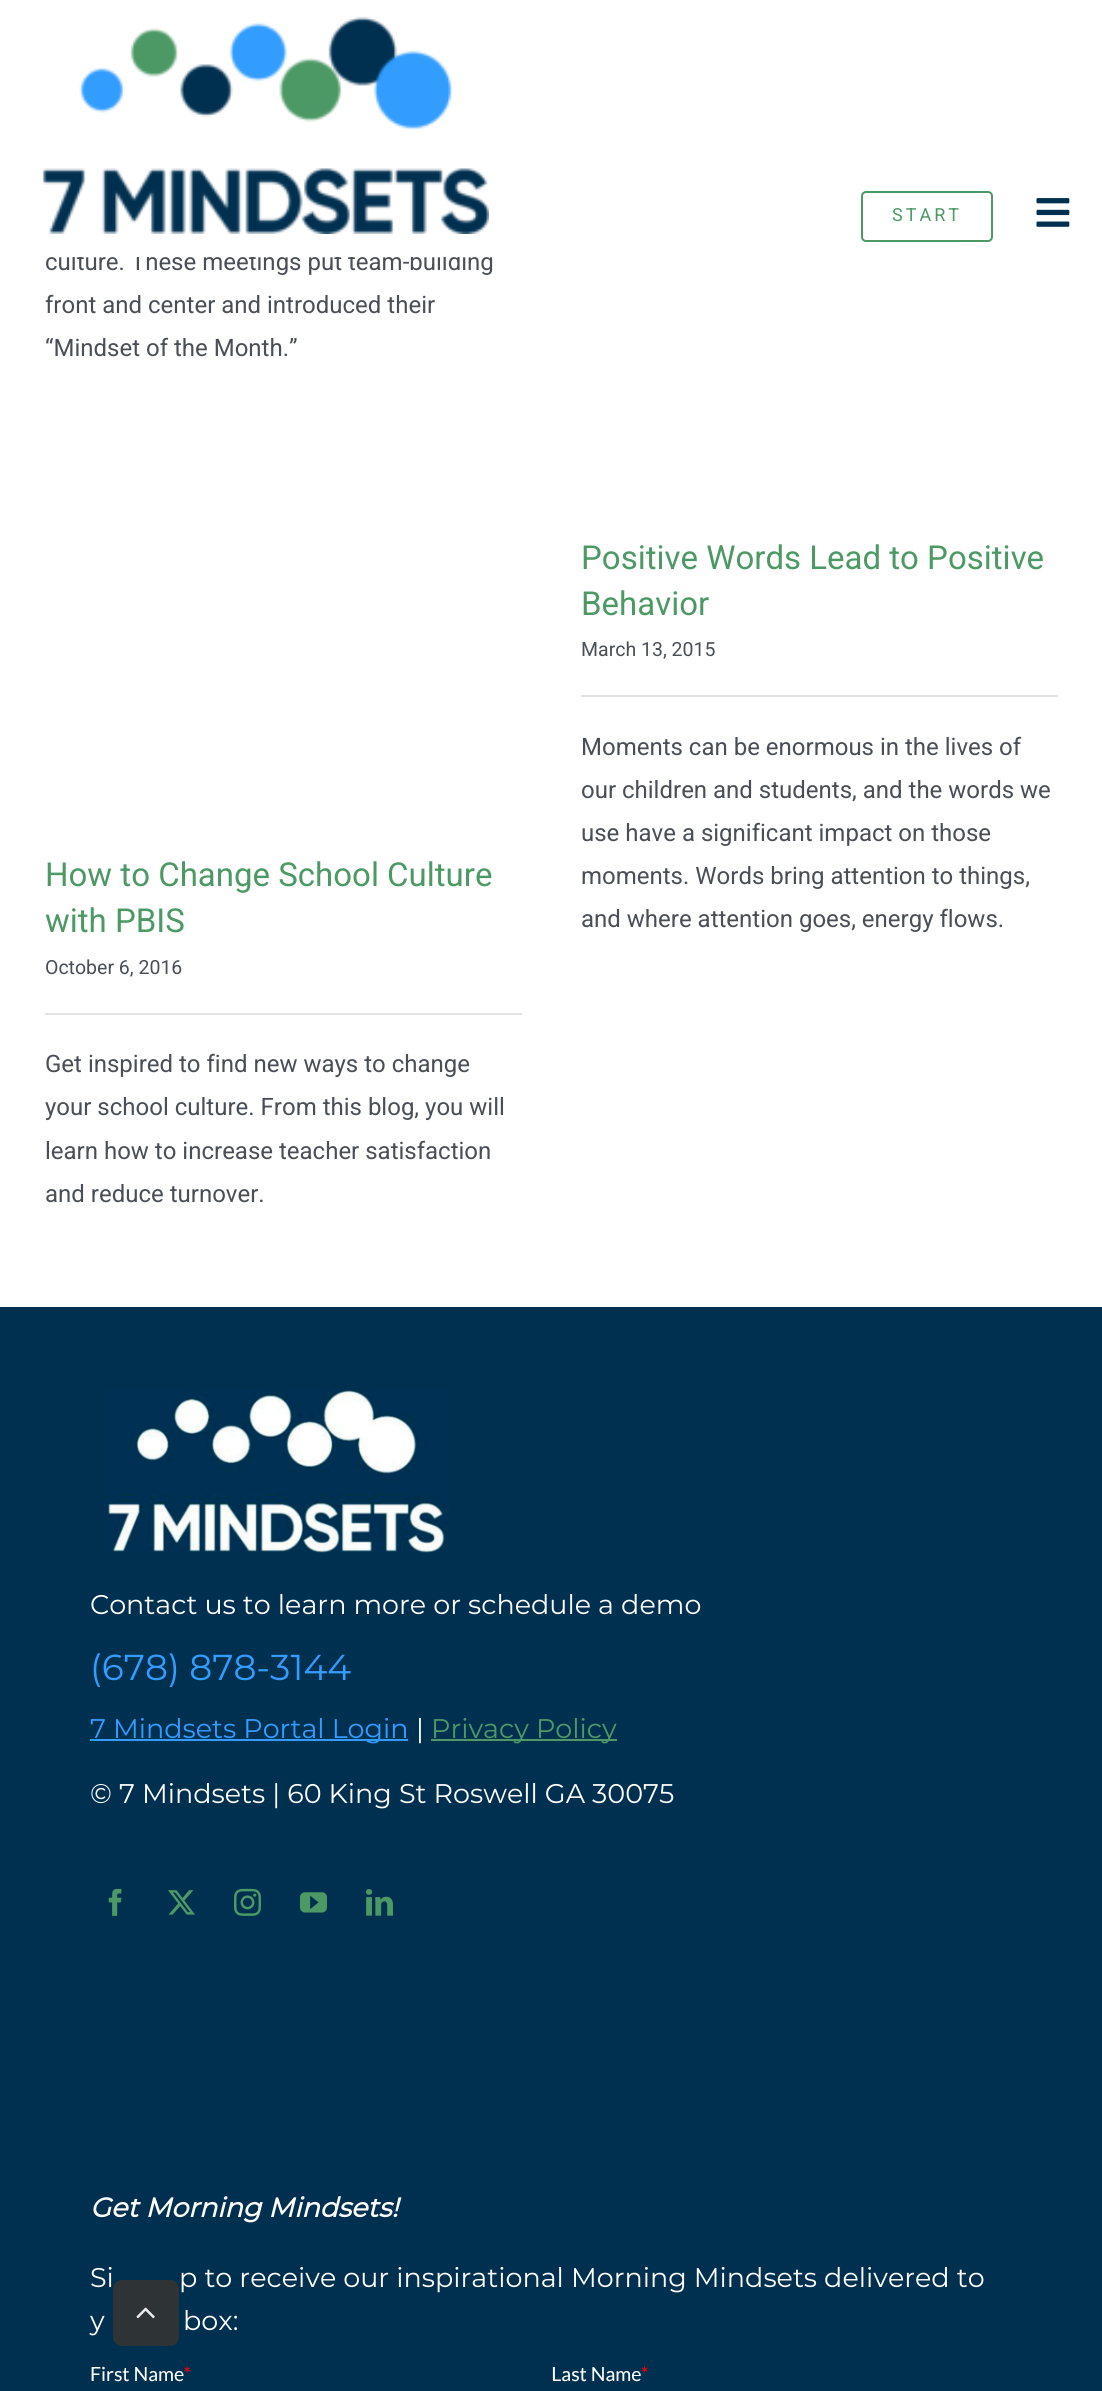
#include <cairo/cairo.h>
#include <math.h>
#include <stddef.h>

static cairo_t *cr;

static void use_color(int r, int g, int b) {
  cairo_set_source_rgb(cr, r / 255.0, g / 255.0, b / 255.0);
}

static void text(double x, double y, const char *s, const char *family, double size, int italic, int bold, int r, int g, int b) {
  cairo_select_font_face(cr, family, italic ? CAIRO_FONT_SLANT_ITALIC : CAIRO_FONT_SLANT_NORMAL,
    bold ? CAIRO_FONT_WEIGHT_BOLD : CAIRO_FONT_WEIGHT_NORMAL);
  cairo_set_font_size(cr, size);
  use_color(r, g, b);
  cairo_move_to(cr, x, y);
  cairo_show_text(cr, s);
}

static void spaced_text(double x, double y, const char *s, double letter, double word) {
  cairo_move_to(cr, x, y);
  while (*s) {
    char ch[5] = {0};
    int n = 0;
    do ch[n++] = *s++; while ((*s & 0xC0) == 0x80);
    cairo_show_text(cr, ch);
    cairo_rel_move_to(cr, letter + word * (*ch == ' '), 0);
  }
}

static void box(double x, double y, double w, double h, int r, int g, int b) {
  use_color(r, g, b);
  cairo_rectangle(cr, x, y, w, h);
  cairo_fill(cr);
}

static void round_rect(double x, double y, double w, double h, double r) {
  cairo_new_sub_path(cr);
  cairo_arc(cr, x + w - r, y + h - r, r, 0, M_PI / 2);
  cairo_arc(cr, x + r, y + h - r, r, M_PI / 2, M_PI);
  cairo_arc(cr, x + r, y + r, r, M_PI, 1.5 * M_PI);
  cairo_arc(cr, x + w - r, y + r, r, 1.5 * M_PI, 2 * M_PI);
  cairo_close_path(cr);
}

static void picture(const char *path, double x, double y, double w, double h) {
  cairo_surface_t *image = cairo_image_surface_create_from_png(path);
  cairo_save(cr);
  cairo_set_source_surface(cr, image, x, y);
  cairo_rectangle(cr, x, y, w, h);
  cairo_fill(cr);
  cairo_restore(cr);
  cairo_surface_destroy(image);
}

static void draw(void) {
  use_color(255, 255, 255);
  cairo_paint(cr);
  picture("img_01.png", 42, 16, 447, 218);
  round_rect(862, 192, 130, 49, 4);
  use_color(77, 153, 101);
  cairo_stroke(cr);
  picture("img_02.png", 1036, 198, 34, 29);
  box(581, 695, 477, 2, 226, 226, 226);
  box(45, 1013, 477, 2, 226, 226, 226);
  box(0, 1307, 1102, 1084, 0, 48, 80);
  picture("img_03.png", 104, 1390, 345, 163);
  box(90, 1739, 318, 2, 51, 156, 255);
  box(431, 1739, 186, 2, 77, 153, 101);
  picture("img_04.png", 108, 1888, 14, 28);
  picture("img_05.png", 168, 1890, 27, 25);
  picture("img_06.png", 234, 1888, 27, 28);
  picture("img_07.png", 300, 1892, 27, 21);
  picture("img_08.png", 366, 1889, 27, 27);
  picture("img_09.png", 91, 2366, 557, 16);
  cairo_set_source_rgba(cr, 0.2, 0.2, 0.2, 0.9);
  round_rect(113, 2280, 66, 66, 9);
  cairo_fill(cr);
  picture("img_10.png", 136, 2307, 19, 12);
  cairo_select_font_face(cr, "Roboto", CAIRO_FONT_SLANT_NORMAL, CAIRO_FONT_WEIGHT_NORMAL);
  cairo_set_font_size(cr, 18);
  use_color(77, 153, 101);
  spaced_text(892, 221, "START", 3, 0);
  text(45, 270, "culture. These meetings put team-building", "Roboto", 24, 0, 0, 74, 78, 87);
  box(72, 252, 394, 5, 255, 255, 255);
  text(45, 313, "front and center and introduced their", "Roboto", 24, 0, 0, 74, 78, 87);
  text(45, 356, "“Mindset of the Month.”", "Roboto", 24, 0, 0, 74, 78, 87);
  text(581, 569, "Positive Words Lead to Positive", "Roboto", 33, 0, 0, 77, 153, 101);
  text(581, 615, "Behavior", "Roboto", 33, 0, 0, 77, 153, 101);
  text(581, 656, "March 13, 2015", "Roboto", 19.5, 0, 0, 74, 78, 87);
  text(581, 755, "Moments can be enormous in the lives of", "Roboto", 24, 0, 0, 74, 78, 87);
  text(581, 798, "our children and students, and the words we", "Roboto", 24, 0, 0, 74, 78, 87);
  text(581, 841, "use have a significant impact on those", "Roboto", 24, 0, 0, 74, 78, 87);
  text(581, 884, "moments. Words bring attention to things,", "Roboto", 24, 0, 0, 74, 78, 87);
  text(581, 927, "and where attention goes, energy flows.", "Roboto", 24, 0, 0, 74, 78, 87);
  text(45, 886, "How to Change School Culture", "Roboto", 33, 0, 0, 77, 153, 101);
  text(45, 932, "with PBIS", "Roboto", 33, 0, 0, 77, 153, 101);
  text(45, 974, "October 6, 2016", "Roboto", 19.5, 0, 0, 74, 78, 87);
  text(45, 1072, "Get inspired to find new ways to change", "Roboto", 24, 0, 0, 74, 78, 87);
  text(45, 1115, "your school culture. From this blog, you will", "Roboto", 24, 0, 0, 74, 78, 87);
  text(45, 1159, "learn how to increase teacher satisfaction", "Roboto", 24, 0, 0, 74, 78, 87);
  text(45, 1202, "and reduce turnover.", "Roboto", 24, 0, 0, 74, 78, 87);
  text(90, 1614, "Contact us to learn more or schedule a demo", "Montserrat", 27, 0, 0, 255, 255, 255);
  text(90, 1680, "(678) 878-3144", "Montserrat", 36, 0, 0, 51, 156, 255);
  text(90, 1738, "7 Mindsets Portal Login", "Montserrat", 27, 0, 0, 51, 156, 255);
  text(416, 1738, "|", "Montserrat", 27, 0, 0, 255, 255, 255);
  text(431, 1738, "Privacy Policy", "Montserrat", 27, 0, 0, 77, 153, 101);
  text(90, 1803, "© 7 Mindsets | 60 King St Roswell GA 30075", "Montserrat", 27, 0, 0, 255, 255, 255);
  text(90, 2217, "Get Morning Mindsets!", "Montserrat", 27, 1, 1, 255, 255, 255);
  text(90, 2287, "Si", "Montserrat", 27, 0, 0, 255, 255, 255);
  text(179, 2287, "p to receive our inspirational Morning Mindsets delivered to", "Montserrat", 27, 0, 0, 255, 255, 255);
  text(90, 2330, "y", "Montserrat", 27, 0, 0, 255, 255, 255);
  text(183, 2330, "box:", "Montserrat", 27, 0, 0, 255, 255, 255);
}

int main(void) {
  cairo_surface_t *surface = cairo_image_surface_create(CAIRO_FORMAT_RGB24, 1102, 2391);
  cr = cairo_create(surface);
  cairo_font_options_t *options = cairo_font_options_create();
  cairo_font_options_set_hint_metrics(options, CAIRO_HINT_METRICS_OFF);
  cairo_font_options_set_hint_style(options, CAIRO_HINT_STYLE_NONE);
  cairo_set_font_options(cr, options);
  cairo_set_miter_limit(cr, 4);
  draw();
  cairo_surface_write_to_png(surface, "out.png");
  cairo_font_options_destroy(options);
  cairo_destroy(cr);
  cairo_surface_destroy(surface);
  return 0;
}
